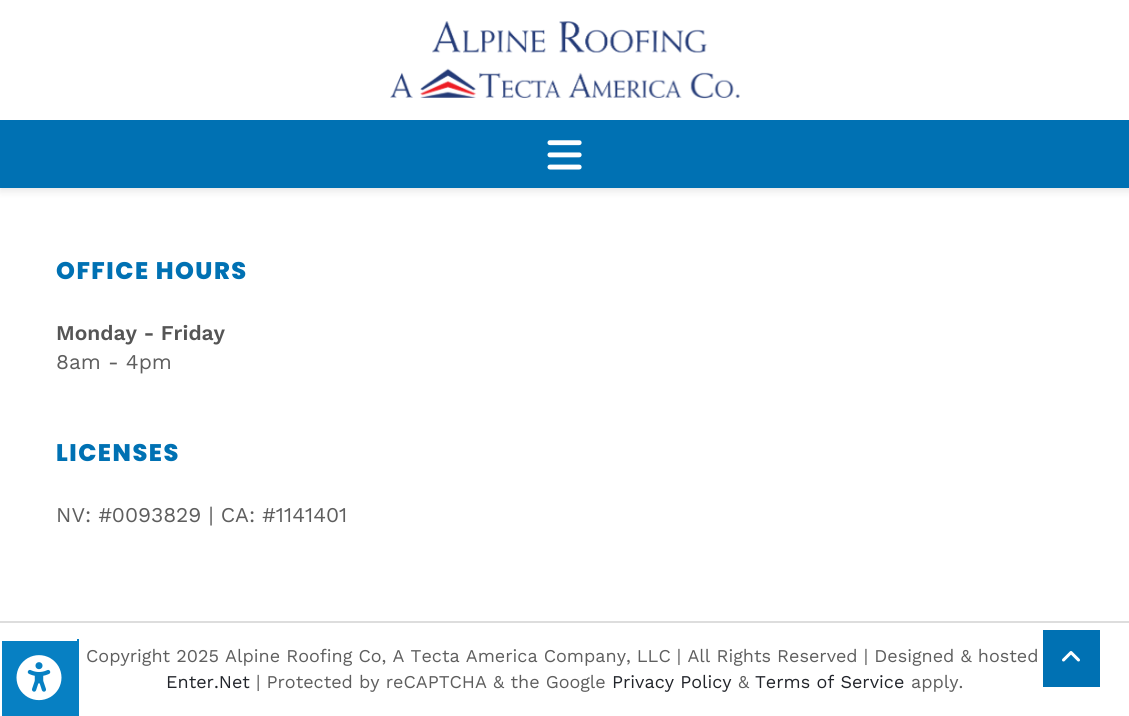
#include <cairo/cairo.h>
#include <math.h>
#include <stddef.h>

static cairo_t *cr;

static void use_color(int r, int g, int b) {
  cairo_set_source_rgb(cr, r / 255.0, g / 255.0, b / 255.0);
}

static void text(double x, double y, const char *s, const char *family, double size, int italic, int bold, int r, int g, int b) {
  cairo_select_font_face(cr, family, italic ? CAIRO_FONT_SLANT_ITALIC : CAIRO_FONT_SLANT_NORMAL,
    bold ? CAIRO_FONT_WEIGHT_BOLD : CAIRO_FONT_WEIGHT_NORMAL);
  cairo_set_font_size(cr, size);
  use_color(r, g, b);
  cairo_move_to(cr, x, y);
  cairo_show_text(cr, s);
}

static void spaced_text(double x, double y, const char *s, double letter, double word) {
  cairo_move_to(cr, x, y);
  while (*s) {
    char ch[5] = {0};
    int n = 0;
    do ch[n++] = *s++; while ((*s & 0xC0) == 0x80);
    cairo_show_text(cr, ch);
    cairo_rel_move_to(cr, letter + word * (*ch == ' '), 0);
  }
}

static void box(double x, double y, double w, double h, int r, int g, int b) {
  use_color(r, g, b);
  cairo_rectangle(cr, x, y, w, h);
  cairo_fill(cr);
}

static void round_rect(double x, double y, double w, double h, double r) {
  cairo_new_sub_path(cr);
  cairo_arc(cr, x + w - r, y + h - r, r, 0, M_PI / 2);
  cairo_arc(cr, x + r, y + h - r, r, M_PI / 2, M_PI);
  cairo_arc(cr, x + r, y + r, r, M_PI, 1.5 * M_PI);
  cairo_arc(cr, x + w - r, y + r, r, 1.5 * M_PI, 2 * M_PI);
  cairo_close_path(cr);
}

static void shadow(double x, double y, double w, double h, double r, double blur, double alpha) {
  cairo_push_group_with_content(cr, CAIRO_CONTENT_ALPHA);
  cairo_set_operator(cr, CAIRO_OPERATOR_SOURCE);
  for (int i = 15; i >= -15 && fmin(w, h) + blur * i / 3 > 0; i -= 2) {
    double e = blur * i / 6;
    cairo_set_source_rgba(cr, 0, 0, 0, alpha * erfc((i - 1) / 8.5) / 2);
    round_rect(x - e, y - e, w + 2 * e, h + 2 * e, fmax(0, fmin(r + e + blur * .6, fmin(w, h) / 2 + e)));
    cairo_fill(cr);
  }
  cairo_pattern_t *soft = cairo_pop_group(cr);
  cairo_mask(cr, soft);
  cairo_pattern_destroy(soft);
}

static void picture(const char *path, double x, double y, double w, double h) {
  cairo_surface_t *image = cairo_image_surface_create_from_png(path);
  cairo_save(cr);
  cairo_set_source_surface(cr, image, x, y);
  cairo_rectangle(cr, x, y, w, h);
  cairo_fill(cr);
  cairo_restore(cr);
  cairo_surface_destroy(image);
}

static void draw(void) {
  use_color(255, 255, 255);
  cairo_paint(cr);
  box(2, 641, 75, 75, 7, 128, 195);
  box(77, 639, 2, 77, 7, 128, 195);
  picture("img_01.png", 16, 655, 46, 46);
  use_color(0, 0, 0);
  shadow(0, 2, 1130, 189, 0, 4, 0.1);
  box(0, 0, 1129, 120, 255, 255, 255);
  picture("img_02.png", 390, 21, 350, 78);
  box(0, 120, 1129, 68, 0, 113, 179);
  picture("img_03.png", 547, 140, 35, 30);
  box(0, 621, 1129, 2, 221, 221, 221);
  box(1043, 630, 57, 57, 0, 113, 179);
  picture("img_04.png", 1062, 651, 18, 11);
  cairo_select_font_face(cr, "Poppins ExtraBold", CAIRO_FONT_SLANT_NORMAL, CAIRO_FONT_WEIGHT_NORMAL);
  cairo_set_font_size(cr, 24);
  spaced_text(56, 279, "OFFICE HOURS", 1.5, 0);
  text(56, 340, "Monday - Friday", "Work Sans SemiBold", 21, 0, 0, 85, 85, 85);
  text(56, 369, "8am - 4pm", "Work Sans", 21, 0, 0, 94, 94, 94);
  cairo_select_font_face(cr, "Poppins ExtraBold", CAIRO_FONT_SLANT_NORMAL, CAIRO_FONT_WEIGHT_NORMAL);
  cairo_set_font_size(cr, 24);
  use_color(0, 113, 179);
  spaced_text(56, 461, "LICENSES", 1.5, 0);
  text(56, 522, "NV: #0093829 | CA: #1141401", "Work Sans", 21, 0, 0, 94, 94, 94);
  text(86, 662, "Copyright 2025 Alpine Roofing Co, A Tecta America Company, LLC | All Rights Reserved | Designed & hosted", "Work Sans", 18, 0, 0, 94, 94, 94);
  text(166, 688, "Enter.Net", "Work Sans", 18, 0, 0, 34, 37, 43);
  text(256, 688, "| Protected by reCAPTCHA & the Google", "Work Sans", 18, 0, 0, 94, 94, 94);
  text(612, 688, "Privacy Policy", "Work Sans", 18, 0, 0, 34, 37, 43);
  text(738, 688, "&", "Work Sans", 18, 0, 0, 94, 94, 94);
  text(755, 688, "Terms of Service", "Work Sans", 18, 0, 0, 34, 37, 43);
  text(911, 688, "apply.", "Work Sans", 18, 0, 0, 94, 94, 94);
}

int main(void) {
  cairo_surface_t *surface = cairo_image_surface_create(CAIRO_FORMAT_RGB24, 1129, 716);
  cr = cairo_create(surface);
  cairo_font_options_t *options = cairo_font_options_create();
  cairo_font_options_set_hint_metrics(options, CAIRO_HINT_METRICS_OFF);
  cairo_font_options_set_hint_style(options, CAIRO_HINT_STYLE_NONE);
  cairo_set_font_options(cr, options);
  cairo_set_miter_limit(cr, 4);
  draw();
  cairo_surface_write_to_png(surface, "out.png");
  cairo_font_options_destroy(options);
  cairo_destroy(cr);
  cairo_surface_destroy(surface);
  return 0;
}
